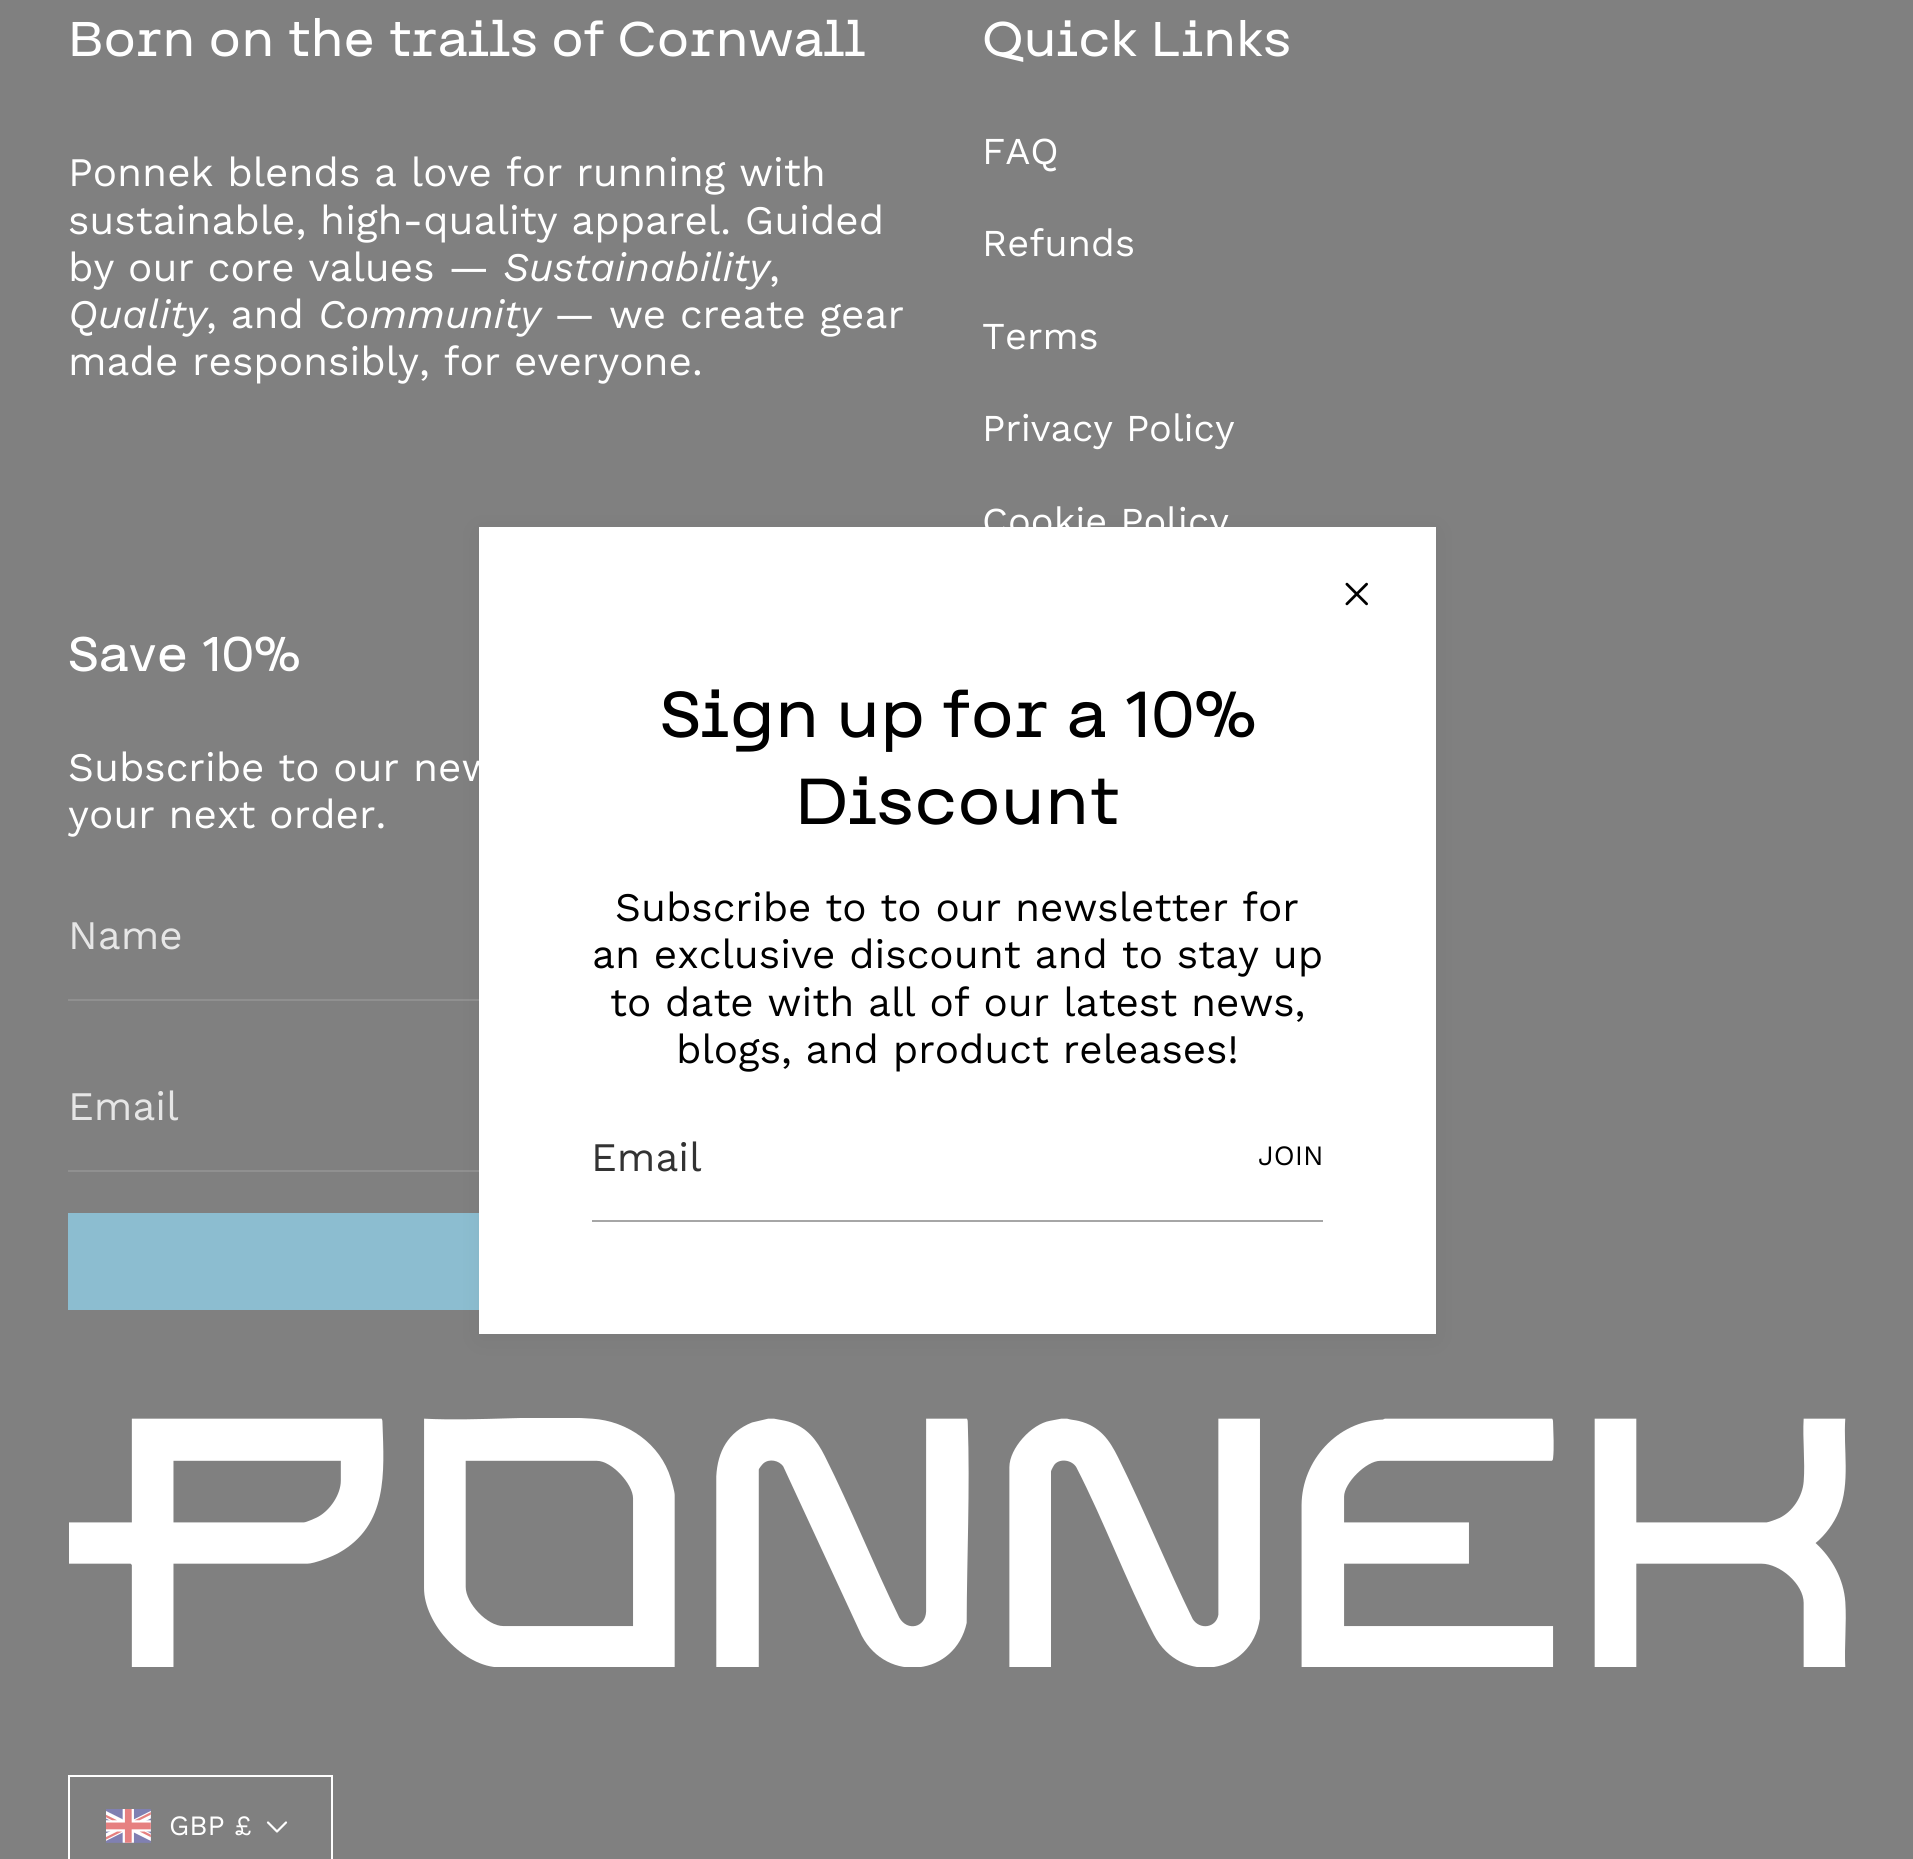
#include <cairo/cairo.h>
#include <math.h>
#include <stddef.h>

static cairo_t *cr;

static void use_color(int r, int g, int b) {
  cairo_set_source_rgb(cr, r / 255.0, g / 255.0, b / 255.0);
}

static void text(double x, double y, const char *s, const char *family, double size, int italic, int bold, int r, int g, int b) {
  cairo_select_font_face(cr, family, italic ? CAIRO_FONT_SLANT_ITALIC : CAIRO_FONT_SLANT_NORMAL,
    bold ? CAIRO_FONT_WEIGHT_BOLD : CAIRO_FONT_WEIGHT_NORMAL);
  cairo_set_font_size(cr, size);
  use_color(r, g, b);
  cairo_move_to(cr, x, y);
  cairo_show_text(cr, s);
}

static void box(double x, double y, double w, double h, int r, int g, int b) {
  use_color(r, g, b);
  cairo_rectangle(cr, x, y, w, h);
  cairo_fill(cr);
}

static void round_rect(double x, double y, double w, double h, double r) {
  cairo_new_sub_path(cr);
  cairo_arc(cr, x + w - r, y + h - r, r, 0, M_PI / 2);
  cairo_arc(cr, x + r, y + h - r, r, M_PI / 2, M_PI);
  cairo_arc(cr, x + r, y + r, r, M_PI, 1.5 * M_PI);
  cairo_arc(cr, x + w - r, y + r, r, 1.5 * M_PI, 2 * M_PI);
  cairo_close_path(cr);
}

static void shadow(double x, double y, double w, double h, double r, double blur, double alpha) {
  cairo_push_group_with_content(cr, CAIRO_CONTENT_ALPHA);
  cairo_set_operator(cr, CAIRO_OPERATOR_SOURCE);
  for (int i = 15; i >= -15 && fmin(w, h) + blur * i / 3 > 0; i -= 2) {
    double e = blur * i / 6;
    cairo_set_source_rgba(cr, 0, 0, 0, alpha * erfc((i - 1) / 8.5) / 2);
    round_rect(x - e, y - e, w + 2 * e, h + 2 * e, fmax(0, fmin(r + e + blur * .6, fmin(w, h) / 2 + e)));
    cairo_fill(cr);
  }
  cairo_pattern_t *soft = cairo_pop_group(cr);
  cairo_mask(cr, soft);
  cairo_pattern_destroy(soft);
}

static void picture(const char *path, double x, double y, double w, double h) {
  cairo_surface_t *image = cairo_image_surface_create_from_png(path);
  cairo_save(cr);
  cairo_set_source_surface(cr, image, x, y);
  cairo_rectangle(cr, x, y, w, h);
  cairo_fill(cr);
  cairo_restore(cr);
  cairo_surface_destroy(image);
}

static void draw(void) {
  use_color(128, 128, 128);
  cairo_paint(cr);
  box(68, 999, 411, 2, 144, 144, 144);
  box(68, 1170, 411, 2, 144, 144, 144);
  box(68, 1213, 411, 97, 140, 189, 208);
  picture("img_01.png", 69, 1418, 1777, 249);
  cairo_rectangle(cr, 69, 1776, 263, 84);
  use_color(255, 255, 255);
  cairo_stroke(cr);
  picture("img_02.png", 106, 1809, 45, 34);
  cairo_new_path(cr);
  cairo_move_to(cr, 268, 1822.5);
  cairo_line_to(cr, 277, 1831.5);
  cairo_line_to(cr, 286, 1822.5);
  cairo_set_line_width(cr, 2.2);
  cairo_set_line_cap(cr, CAIRO_LINE_CAP_ROUND);
  cairo_set_line_join(cr, CAIRO_LINE_JOIN_ROUND);
  cairo_stroke(cr);
  use_color(0, 0, 0);
  shadow(479, 531, 957, 808, 0, 11, 0.05);
  box(479, 527, 957, 807, 255, 255, 255);
  picture("img_03.png", 1345, 582, 23, 24);
  box(592, 1220, 731, 2, 166, 166, 166);
  text(68, 56, "Born on the trails of Cornwall", "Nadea", 54, 0, 0, 255, 255, 255);
  text(68, 186, "Ponnek blends a love for running with", "Work Sans", 40.5, 0, 0, 255, 255, 255);
  text(68, 234, "sustainable, high-quality apparel. Guided", "Work Sans", 40.5, 0, 0, 255, 255, 255);
  text(68, 281, "by our core values —", "Work Sans", 40.5, 0, 0, 255, 255, 255);
  text(503, 281, "Sustainability", "Work Sans", 40.5, 1, 0, 255, 255, 255);
  text(769, 281, ",", "Work Sans", 40.5, 0, 0, 255, 255, 255);
  text(68, 328, "Quality", "Work Sans", 40.5, 1, 0, 255, 255, 255);
  text(206, 328, ", and", "Work Sans", 40.5, 0, 0, 255, 255, 255);
  text(318, 328, "Community", "Work Sans", 40.5, 1, 0, 255, 255, 255);
  text(554, 328, "— we create gear", "Work Sans", 40.5, 0, 0, 255, 255, 255);
  text(68, 375, "made responsibly, for everyone.", "Work Sans", 40.5, 0, 0, 255, 255, 255);
  text(982, 56, "Quick Links", "Nadea", 54, 0, 0, 255, 255, 255);
  text(982, 164, "FAQ", "Work Sans", 38, 0, 0, 255, 255, 255);
  text(982, 256, "Refunds", "Work Sans", 38, 0, 0, 255, 255, 255);
  text(982, 349, "Terms", "Work Sans", 38, 0, 0, 255, 255, 255);
  text(982, 441, "Privacy Policy", "Work Sans", 38, 0, 0, 255, 255, 255);
  text(982, 534, "Cookie Policy", "Work Sans", 38, 0, 0, 255, 255, 255);
  text(68, 671, "Save 10%", "Nadea", 54, 0, 0, 255, 255, 255);
  text(68, 781, "Subscribe to our new", "Work Sans", 40.5, 0, 0, 255, 255, 255);
  text(68, 828, "your next order.", "Work Sans", 40.5, 0, 0, 255, 255, 255);
  text(68, 949, "Name", "Work Sans", 40.5, 0, 0, 230, 230, 230);
  text(68, 1120, "Email", "Work Sans", 40.5, 0, 0, 230, 230, 230);
  text(169, 1835, "GBP £", "Work Sans", 28, 0, 0, 255, 255, 255);
  text(660, 737, "Sign up for a 10%", "Nadea", 72, 0, 0, 0, 0, 0);
  text(795, 824, "Discount", "Nadea", 72, 0, 0, 0, 0, 0);
  text(615, 921, "Subscribe to to our newsletter for", "Work Sans", 40.5, 0, 0, 0, 0, 0);
  text(592, 968, "an exclusive discount and to stay up", "Work Sans", 40.5, 0, 0, 0, 0, 0);
  text(610, 1016, "to date with all of our latest news,", "Work Sans", 40.5, 0, 0, 0, 0, 0);
  text(676, 1063, "blogs, and product releases!", "Work Sans", 40.5, 0, 0, 0, 0, 0);
  text(591, 1171, "Email", "Work Sans", 40.5, 0, 0, 51, 51, 51);
  text(1258, 1165, "JOIN", "Work Sans", 28, 0, 0, 0, 0, 0);
}

int main(void) {
  cairo_surface_t *surface = cairo_image_surface_create(CAIRO_FORMAT_RGB24, 1913, 1859);
  cr = cairo_create(surface);
  cairo_font_options_t *options = cairo_font_options_create();
  cairo_font_options_set_hint_metrics(options, CAIRO_HINT_METRICS_OFF);
  cairo_font_options_set_hint_style(options, CAIRO_HINT_STYLE_NONE);
  cairo_set_font_options(cr, options);
  cairo_set_miter_limit(cr, 4);
  draw();
  cairo_surface_write_to_png(surface, "out.png");
  cairo_font_options_destroy(options);
  cairo_destroy(cr);
  cairo_surface_destroy(surface);
  return 0;
}
